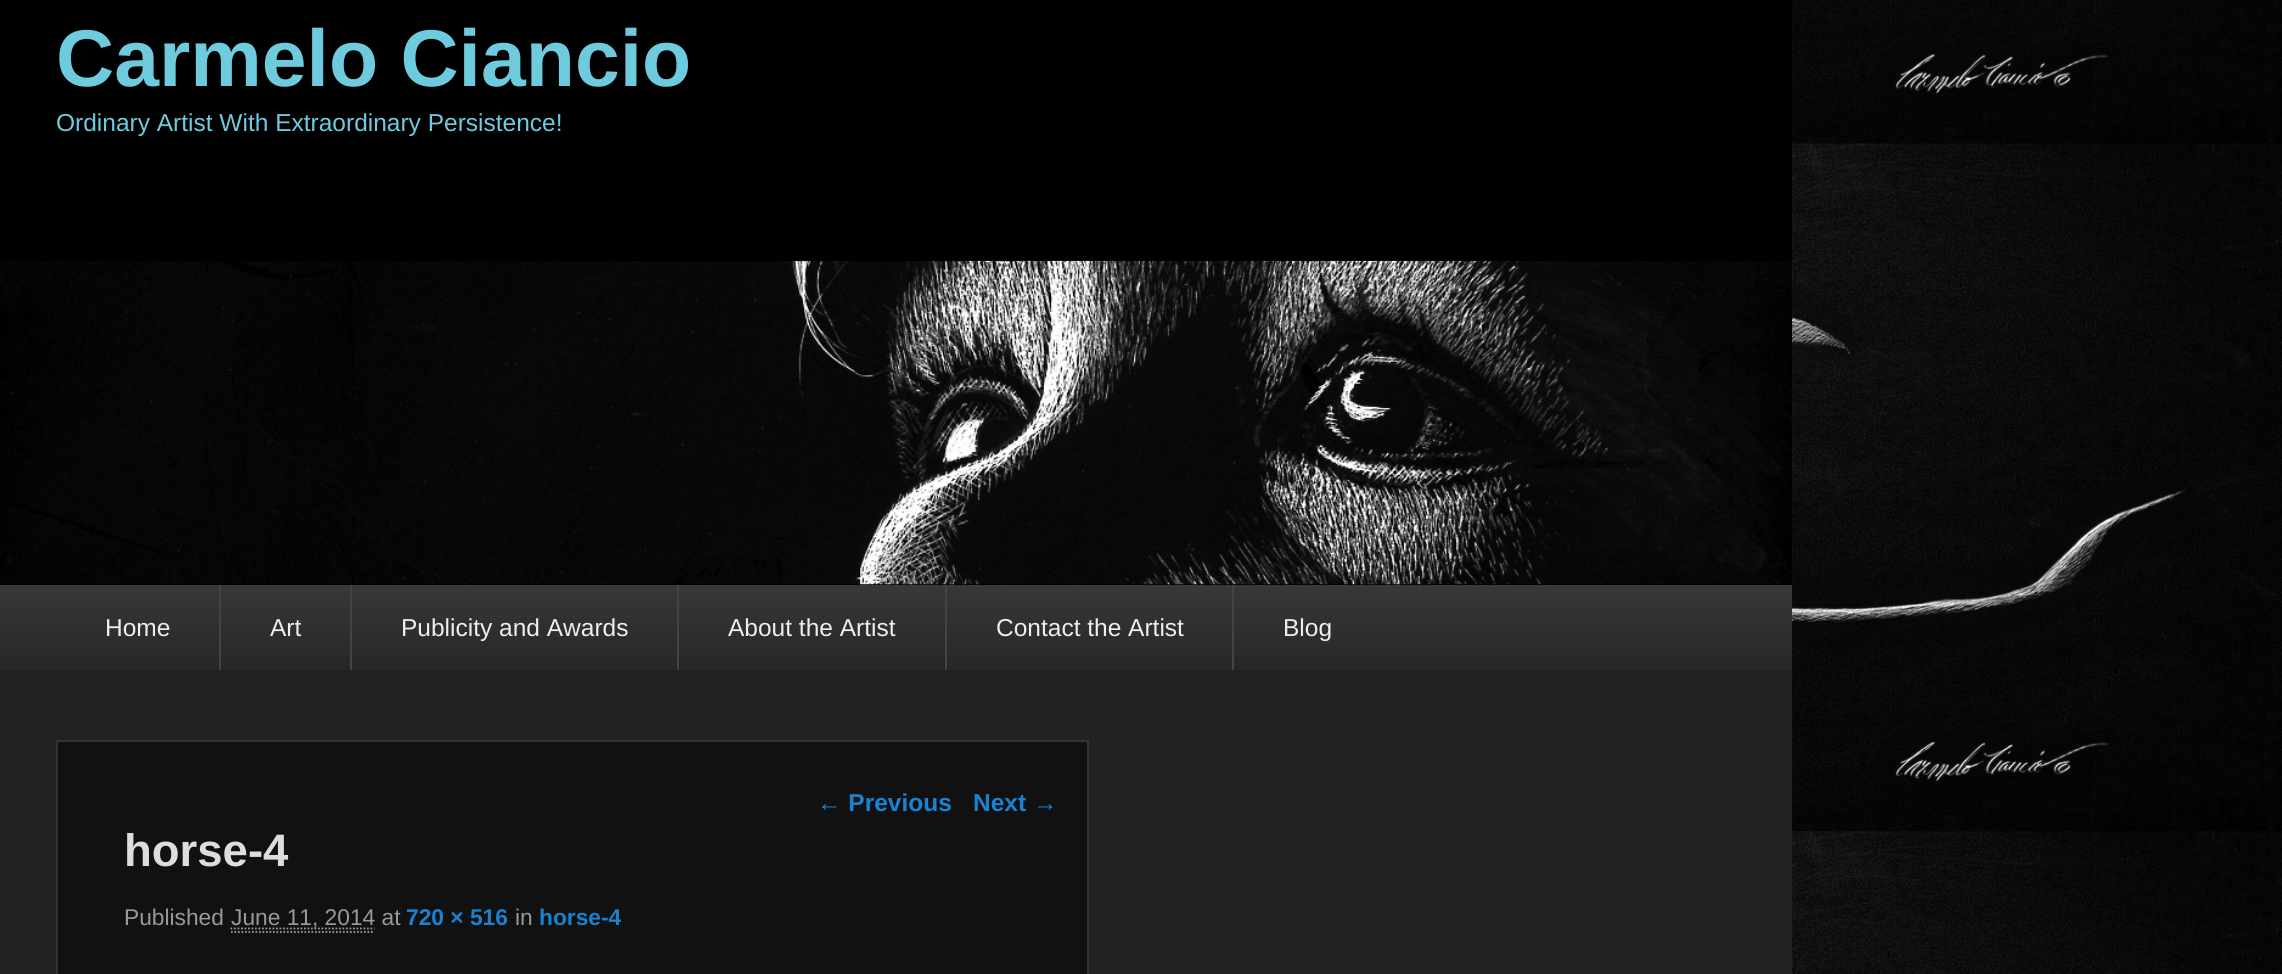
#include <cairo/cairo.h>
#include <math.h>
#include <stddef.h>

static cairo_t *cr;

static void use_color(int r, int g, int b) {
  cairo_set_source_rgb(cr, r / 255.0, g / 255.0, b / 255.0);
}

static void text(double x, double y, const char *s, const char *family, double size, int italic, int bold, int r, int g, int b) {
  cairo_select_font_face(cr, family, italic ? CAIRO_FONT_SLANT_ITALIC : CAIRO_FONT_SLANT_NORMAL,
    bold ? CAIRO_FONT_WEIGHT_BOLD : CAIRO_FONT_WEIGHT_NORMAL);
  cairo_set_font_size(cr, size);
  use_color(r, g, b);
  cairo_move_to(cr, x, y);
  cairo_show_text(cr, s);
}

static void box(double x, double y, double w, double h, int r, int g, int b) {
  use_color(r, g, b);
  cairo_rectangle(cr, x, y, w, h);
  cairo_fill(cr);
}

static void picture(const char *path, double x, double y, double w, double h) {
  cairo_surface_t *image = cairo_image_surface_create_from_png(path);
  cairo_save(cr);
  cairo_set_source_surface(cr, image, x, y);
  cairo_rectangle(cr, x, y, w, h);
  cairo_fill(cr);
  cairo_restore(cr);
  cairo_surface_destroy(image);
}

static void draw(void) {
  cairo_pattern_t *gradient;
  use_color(255, 255, 255);
  cairo_paint(cr);
  picture("img_01.png", 1792, 0, 490, 974);
  box(0, 0, 1792, 585, 0, 0, 0);
  picture("img_02.png", 0, 260, 1792, 325);
  gradient = cairo_pattern_create_linear(896, 584, 896, 670);
  cairo_pattern_add_color_stop_rgba(gradient, 0, 0.22, 0.22, 0.22, 1);
  cairo_pattern_add_color_stop_rgba(gradient, 1, 0.153, 0.153, 0.153, 1);
  cairo_set_source(cr, gradient);
  cairo_pattern_destroy(gradient);
  cairo_rectangle(cr, 0, 585, 1792, 85);
  cairo_fill(cr);
  box(219, 585, 2, 85, 68, 68, 68);
  box(350, 585, 2, 85, 68, 68, 68);
  box(677, 585, 2, 85, 68, 68, 68);
  box(945, 585, 2, 85, 68, 68, 68);
  box(1232, 585, 2, 85, 68, 68, 68);
  box(0, 670, 1792, 304, 34, 34, 34);
  use_color(17, 17, 17);
  cairo_rectangle(cr, 57, 741, 1031, 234);
  cairo_fill_preserve(cr);
  use_color(51, 51, 51);
  cairo_stroke(cr);
  cairo_new_path(cr);
  cairo_move_to(cr, 231, 932);
  cairo_line_to(cr, 374.5, 932);
  use_color(153, 153, 153);
  cairo_set_line_width(cr, 1.8);
  cairo_set_dash(cr, (double[]){1.75, 1.75}, 2, 0);
  cairo_stroke(cr);
  cairo_new_path(cr);
  cairo_move_to(cr, 230.5, 928.5);
  cairo_line_to(cr, 374.5, 928.5);
  cairo_stroke(cr);
  text(56, 86, "Carmelo Ciancio", "Liberation Sans", 80.5, 0, 1, 110, 203, 221);
  text(56, 131, "Ordinary Artist With Extraordinary Persistence!", "Liberation Sans", 24.5, 0, 0, 110, 203, 221);
  text(105, 636, "Home", "Liberation Sans", 24.5, 0, 0, 238, 238, 238);
  text(270, 636, "Art", "Liberation Sans", 24.5, 0, 0, 238, 238, 238);
  text(401, 636, "Publicity and Awards", "Liberation Sans", 24.5, 0, 0, 238, 238, 238);
  text(728, 636, "About the Artist", "Liberation Sans", 24.5, 0, 0, 238, 238, 238);
  text(996, 636, "Contact the Artist", "Liberation Sans", 24.5, 0, 0, 238, 238, 238);
  text(1283, 636, "Blog", "Liberation Sans", 24.5, 0, 0, 238, 238, 238);
  text(817, 811, "← Previous", "Liberation Sans", 24.5, 0, 1, 25, 130, 209);
  text(973, 811, "Next →", "Liberation Sans", 24.5, 0, 1, 25, 130, 209);
  text(124, 866, "horse-4", "Liberation Sans", 45.5, 0, 1, 221, 221, 221);
  text(124, 925, "Published", "Liberation Sans", 22.75, 0, 0, 153, 153, 153);
  text(231, 925, "June 11, 2014 at", "Liberation Sans", 22.75, 0, 0, 153, 153, 153);
  text(406, 925, "720 × 516", "Liberation Sans", 22.75, 0, 1, 25, 130, 209);
  text(515, 925, "in", "Liberation Sans", 22.75, 0, 0, 153, 153, 153);
  text(539, 925, "horse-4", "Liberation Sans", 22.75, 0, 1, 25, 130, 209);
}

int main(void) {
  cairo_surface_t *surface = cairo_image_surface_create(CAIRO_FORMAT_RGB24, 2282, 974);
  cr = cairo_create(surface);
  cairo_font_options_t *options = cairo_font_options_create();
  cairo_font_options_set_hint_metrics(options, CAIRO_HINT_METRICS_OFF);
  cairo_font_options_set_hint_style(options, CAIRO_HINT_STYLE_NONE);
  cairo_set_font_options(cr, options);
  cairo_set_miter_limit(cr, 4);
  draw();
  cairo_surface_write_to_png(surface, "out.png");
  cairo_font_options_destroy(options);
  cairo_destroy(cr);
  cairo_surface_destroy(surface);
  return 0;
}
